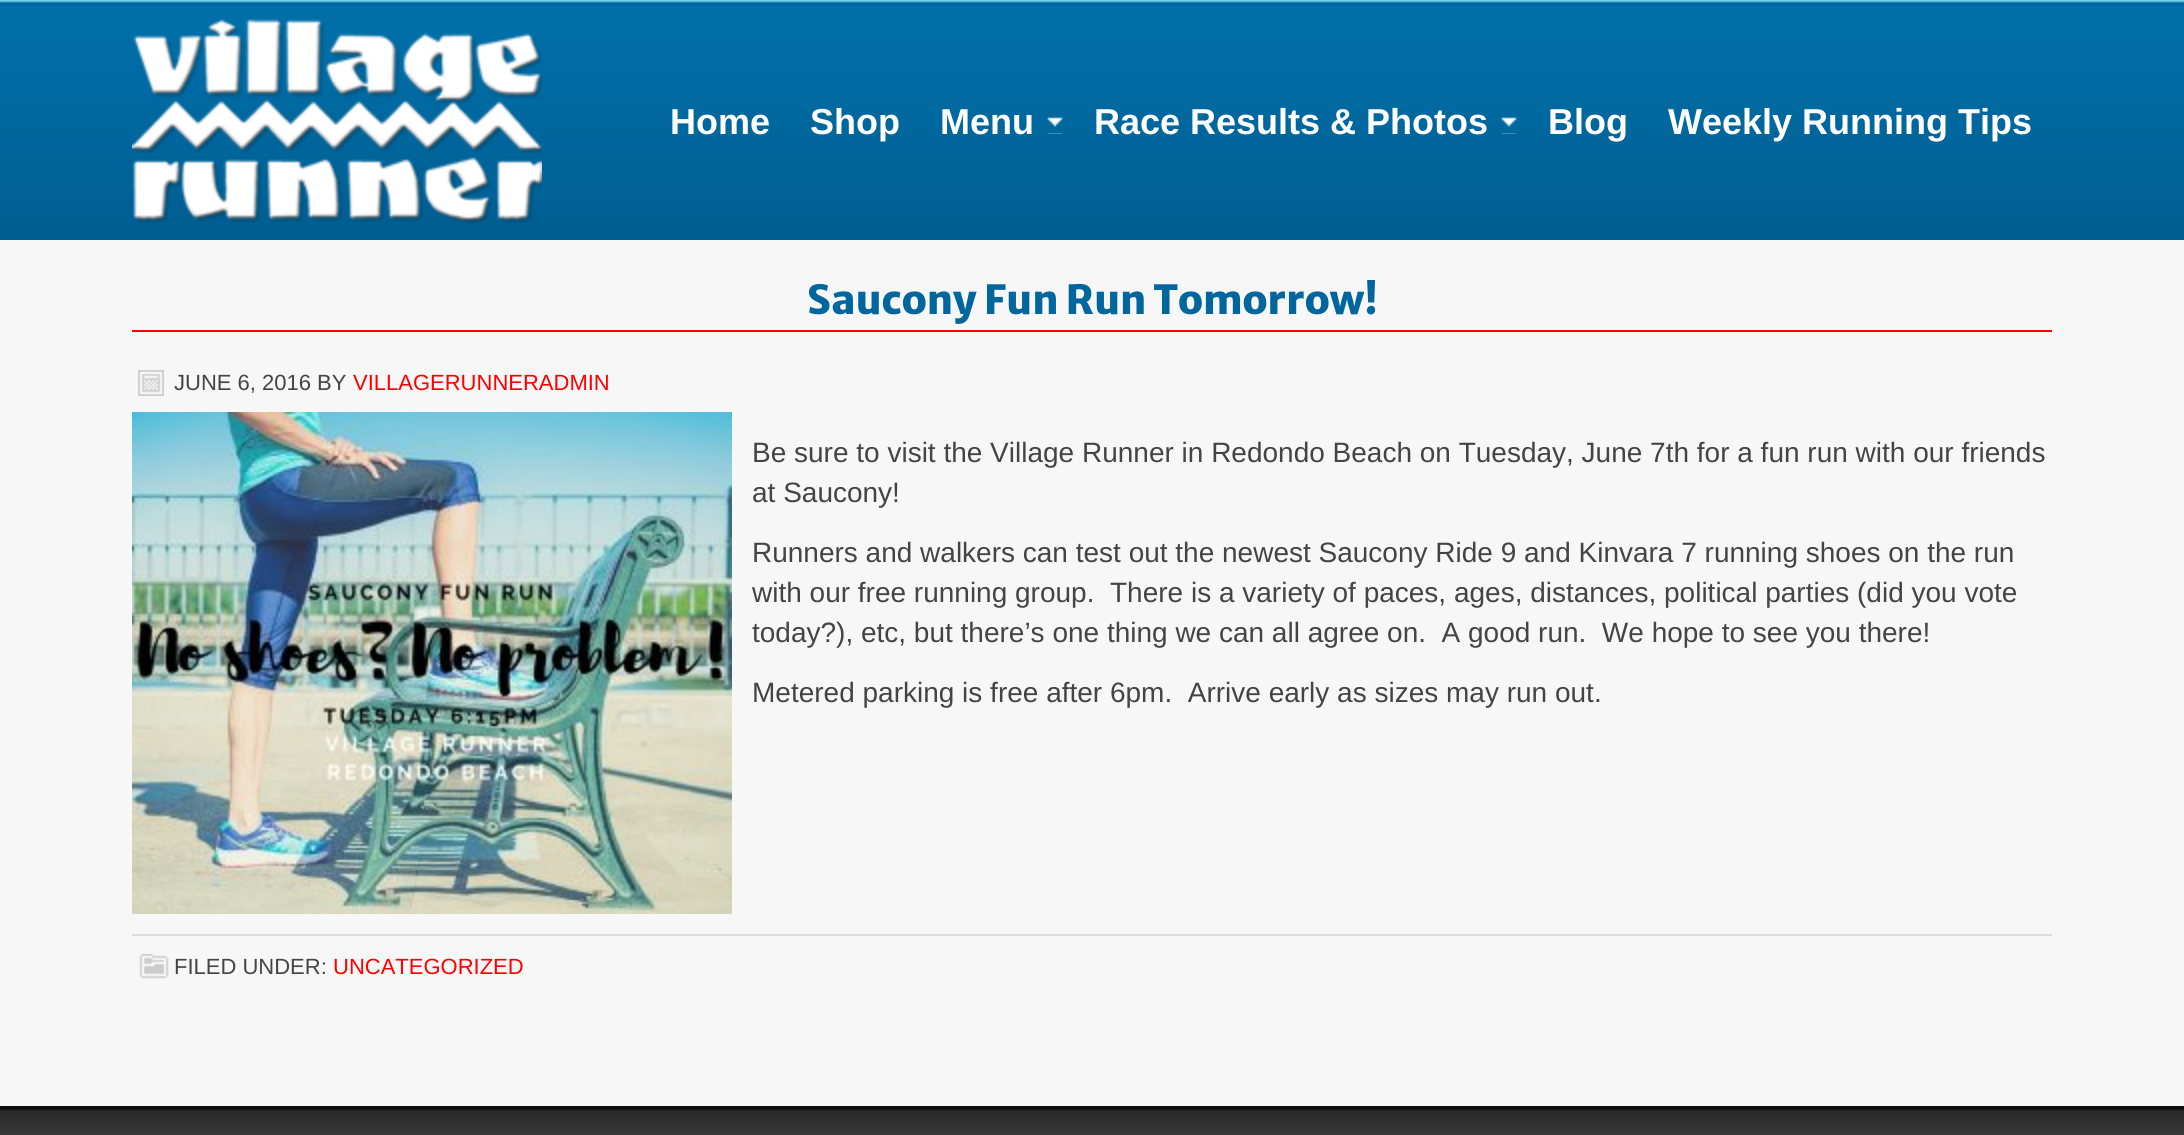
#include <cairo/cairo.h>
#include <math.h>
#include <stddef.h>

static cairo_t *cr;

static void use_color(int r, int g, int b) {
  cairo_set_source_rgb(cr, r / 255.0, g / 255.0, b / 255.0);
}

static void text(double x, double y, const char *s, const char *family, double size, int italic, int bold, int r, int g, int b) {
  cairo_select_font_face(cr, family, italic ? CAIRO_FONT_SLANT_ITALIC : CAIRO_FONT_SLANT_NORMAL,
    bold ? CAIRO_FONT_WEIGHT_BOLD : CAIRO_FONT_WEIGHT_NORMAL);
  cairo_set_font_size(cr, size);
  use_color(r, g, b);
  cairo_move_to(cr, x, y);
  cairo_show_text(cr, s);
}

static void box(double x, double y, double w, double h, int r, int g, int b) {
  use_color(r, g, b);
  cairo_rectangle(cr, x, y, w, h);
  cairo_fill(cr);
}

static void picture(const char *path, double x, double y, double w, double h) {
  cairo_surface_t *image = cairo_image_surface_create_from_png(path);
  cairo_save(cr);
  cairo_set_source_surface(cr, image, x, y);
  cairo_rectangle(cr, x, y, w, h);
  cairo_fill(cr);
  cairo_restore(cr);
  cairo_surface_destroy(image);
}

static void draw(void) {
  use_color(247, 247, 247);
  cairo_paint(cr);
  picture("img_01.png", 0, 0, 2184, 240);
  picture("img_02.png", 132, 19, 410, 205);
  picture("img_03.png", 1047, 117, 16, 17);
  picture("img_03.png", 1501, 117, 16, 17);
  box(132, 330, 1920, 2, 255, 0, 0);
  picture("img_04.png", 138, 370, 26, 26);
  picture("img_05.png", 132, 412, 600, 502);
  box(132, 934, 1920, 2, 221, 221, 221);
  picture("img_06.png", 138, 954, 31, 25);
  picture("img_07.png", 0, 1106, 2184, 29);
  text(670, 134, "Home", "Liberation Sans", 36, 0, 1, 255, 255, 255);
  text(810, 134, "Shop", "Liberation Sans", 36, 0, 1, 255, 255, 255);
  text(940, 134, "Menu", "Liberation Sans", 36, 0, 1, 255, 255, 255);
  text(1094, 134, "Race Results & Photos", "Liberation Sans", 36, 0, 1, 255, 255, 255);
  text(1548, 134, "Blog", "Liberation Sans", 36, 0, 1, 255, 255, 255);
  text(1668, 134, "Weekly Running Tips", "Liberation Sans", 36, 0, 1, 255, 255, 255);
  cairo_save(cr);
  cairo_rectangle(cr, 132, 280, 1920, 786);
  cairo_clip(cr);
  text(807, 314, "Saucony Fun Run Tomorrow!", "Merriweather Sans ExtraBold", 40, 0, 0, 0, 102, 157);
  cairo_restore(cr);
  text(174, 390, "JUNE 6, 2016 BY", "Liberation Sans", 22, 0, 0, 68, 68, 68);
  text(353, 390, "VILLAGERUNNERADMIN", "Liberation Sans", 22, 0, 0, 255, 0, 0);
  text(752, 462, "Be sure to visit the Village Runner in Redondo Beach on Tuesday, June 7th for a fun run with our friends", "Liberation Sans", 28, 0, 0, 68, 68, 68);
  text(752, 502, "at Saucony!", "Liberation Sans", 28, 0, 0, 68, 68, 68);
  text(752, 562, "Runners and walkers can test out the newest Saucony Ride 9 and Kinvara 7 running shoes on the run", "Liberation Sans", 28, 0, 0, 68, 68, 68);
  text(752, 602, "with our free running group.  There is a variety of paces, ages, distances, political parties (did you vote", "Liberation Sans", 28, 0, 0, 68, 68, 68);
  text(752, 642, "today?), etc, but there’s one thing we can all agree on.  A good run.  We hope to see you there!", "Liberation Sans", 28, 0, 0, 68, 68, 68);
  text(752, 702, "Metered parking is free after 6pm.  Arrive early as sizes may run out.", "Liberation Sans", 28, 0, 0, 68, 68, 68);
  text(174, 974, "FILED UNDER:", "Liberation Sans", 22, 0, 0, 68, 68, 68);
  text(333, 974, "UNCATEGORIZED", "Liberation Sans", 22, 0, 0, 255, 0, 0);
}

int main(void) {
  cairo_surface_t *surface = cairo_image_surface_create(CAIRO_FORMAT_RGB24, 2184, 1135);
  cr = cairo_create(surface);
  cairo_font_options_t *options = cairo_font_options_create();
  cairo_font_options_set_hint_metrics(options, CAIRO_HINT_METRICS_OFF);
  cairo_font_options_set_hint_style(options, CAIRO_HINT_STYLE_NONE);
  cairo_set_font_options(cr, options);
  cairo_set_miter_limit(cr, 4);
  draw();
  cairo_surface_write_to_png(surface, "out.png");
  cairo_font_options_destroy(options);
  cairo_destroy(cr);
  cairo_surface_destroy(surface);
  return 0;
}
